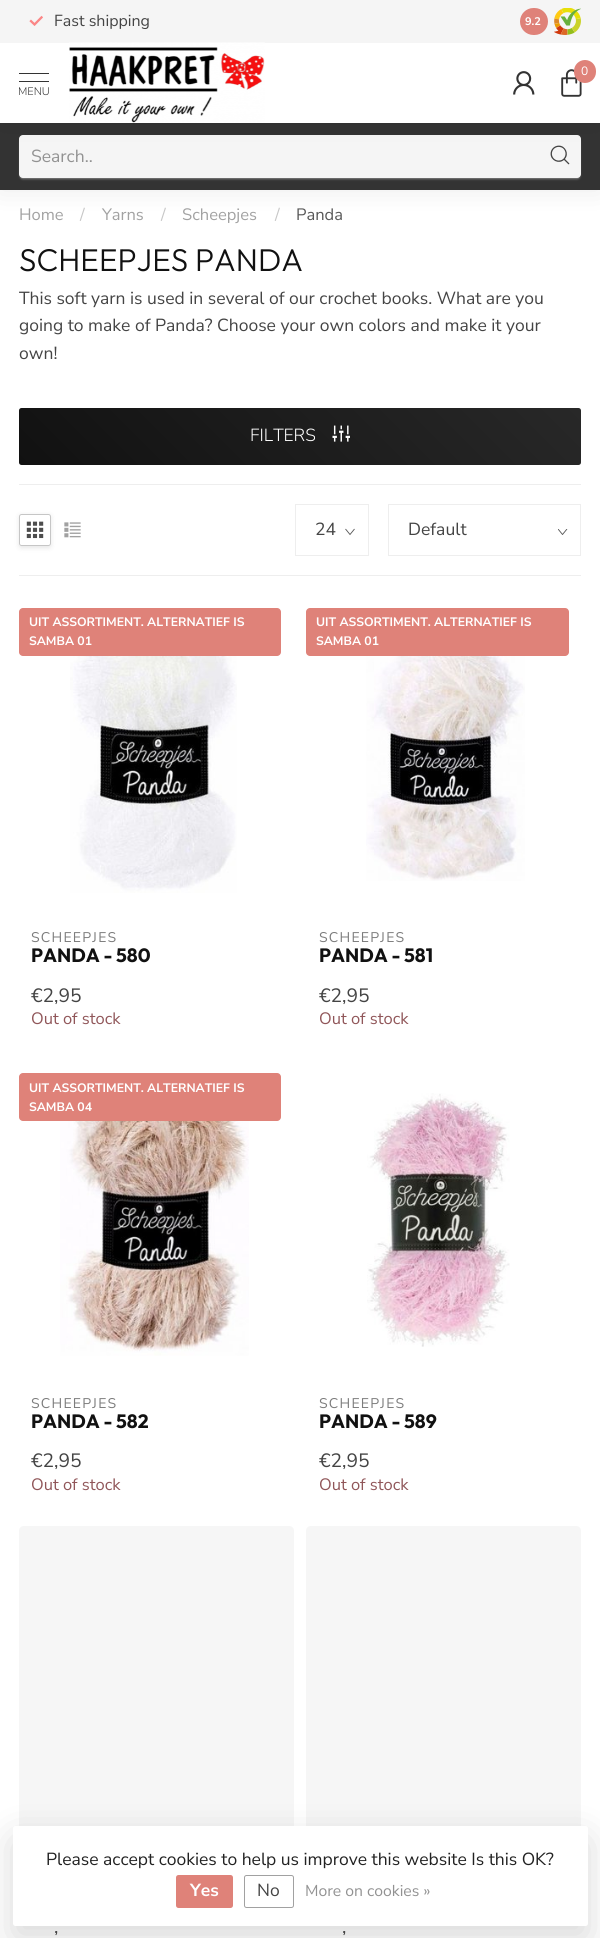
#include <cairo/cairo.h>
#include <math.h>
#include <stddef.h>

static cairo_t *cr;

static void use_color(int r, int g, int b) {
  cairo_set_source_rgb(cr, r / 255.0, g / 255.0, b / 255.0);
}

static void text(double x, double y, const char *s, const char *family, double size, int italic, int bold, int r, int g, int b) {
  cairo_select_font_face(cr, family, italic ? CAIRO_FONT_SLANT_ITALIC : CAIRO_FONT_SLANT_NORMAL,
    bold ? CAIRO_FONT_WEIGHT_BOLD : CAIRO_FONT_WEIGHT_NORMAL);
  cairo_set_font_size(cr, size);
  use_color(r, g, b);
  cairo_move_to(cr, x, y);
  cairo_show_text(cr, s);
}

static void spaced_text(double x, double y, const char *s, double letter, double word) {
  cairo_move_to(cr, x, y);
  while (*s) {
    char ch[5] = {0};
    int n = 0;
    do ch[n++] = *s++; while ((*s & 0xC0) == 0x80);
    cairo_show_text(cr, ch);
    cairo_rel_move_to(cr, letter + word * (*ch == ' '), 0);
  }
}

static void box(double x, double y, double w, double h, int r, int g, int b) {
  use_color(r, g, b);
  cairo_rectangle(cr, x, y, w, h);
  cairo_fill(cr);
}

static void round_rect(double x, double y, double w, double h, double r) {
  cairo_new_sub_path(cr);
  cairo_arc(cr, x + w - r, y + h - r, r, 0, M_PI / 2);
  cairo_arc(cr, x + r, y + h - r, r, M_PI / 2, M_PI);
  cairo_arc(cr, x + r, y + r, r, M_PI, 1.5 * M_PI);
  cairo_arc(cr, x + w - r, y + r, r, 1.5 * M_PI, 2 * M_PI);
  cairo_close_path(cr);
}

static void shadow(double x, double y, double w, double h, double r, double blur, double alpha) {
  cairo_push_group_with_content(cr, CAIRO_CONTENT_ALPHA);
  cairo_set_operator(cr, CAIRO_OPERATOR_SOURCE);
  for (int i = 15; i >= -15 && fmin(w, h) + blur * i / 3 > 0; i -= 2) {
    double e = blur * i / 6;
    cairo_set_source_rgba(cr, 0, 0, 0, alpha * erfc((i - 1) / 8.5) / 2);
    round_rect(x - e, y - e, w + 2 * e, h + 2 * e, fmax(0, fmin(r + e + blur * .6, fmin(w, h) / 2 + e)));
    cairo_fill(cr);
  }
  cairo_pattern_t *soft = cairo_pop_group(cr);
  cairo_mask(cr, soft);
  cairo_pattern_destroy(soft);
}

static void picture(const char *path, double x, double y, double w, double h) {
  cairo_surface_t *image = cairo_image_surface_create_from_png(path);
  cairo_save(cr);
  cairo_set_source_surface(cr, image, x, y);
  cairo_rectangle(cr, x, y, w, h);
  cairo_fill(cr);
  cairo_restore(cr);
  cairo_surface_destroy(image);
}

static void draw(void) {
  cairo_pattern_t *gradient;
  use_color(255, 255, 255);
  cairo_paint(cr);
  use_color(0, 0, 0);
  shadow(0, 123, 600, 67, 0, 14, 0.08);
  box(0, 123, 600, 67, 51, 51, 51);
  use_color(155, 155, 155);
  shadow(20, 139, 560, 40, 2.5, 1, 0.75);
  use_color(255, 255, 255);
  round_rect(19, 135, 562, 43, 4);
  cairo_fill(cr);
  cairo_set_source_rgba(cr, 0.2, 0.2, 0.2, 0.05);
  cairo_rectangle(cr, 19, 135, 562, 43);
  cairo_fill(cr);
  picture("img_06.png", 550, 145, 20, 20);
  use_color(0, 0, 0);
  shadow(0, 0, 600, 123, 0, 12.5, 0.07);
  box(0, 43, 600, 80, 255, 255, 255);
  box(0, 0, 600, 43, 245, 245, 245);
  picture("img_01.png", 29, 15, 14, 11);
  use_color(223, 130, 121);
  round_rect(520, 8, 28, 27, 13.5);
  cairo_fill(cr);
  picture("img_02.png", 554, 8, 27, 27);
  picture("img_03.png", 69, 42, 196, 81);
  picture("img_04.png", 513, 71, 22, 24);
  picture("img_05.png", 561, 69, 21, 28);
  round_rect(574, 60, 22, 23, 11);
  cairo_fill(cr);
  box(19, 73, 30, 1, 51, 51, 51);
  box(19, 81, 30, 1, 51, 51, 51);
  gradient = cairo_pattern_create_linear(145, 591, 455, 281);
  cairo_pattern_add_color_stop_rgba(gradient, 0, 0.067, 0.067, 0.067, 1);
  cairo_pattern_add_color_stop_rgba(gradient, 1, 0.157, 0.157, 0.157, 1);
  cairo_set_source(cr, gradient);
  cairo_pattern_destroy(gradient);
  round_rect(19, 408, 562, 57, 2.5);
  cairo_fill(cr);
  picture("img_07.png", 332, 425, 18, 17);
  box(19, 484, 562, 1, 238, 238, 238);
  box(19, 575, 562, 1, 238, 238, 238);
  cairo_save(cr);
  cairo_set_fill_rule(cr, CAIRO_FILL_RULE_EVEN_ODD);
  cairo_new_path(cr);
  cairo_move_to(cr, 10, 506);
  cairo_line_to(cr, 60, 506);
  cairo_line_to(cr, 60, 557);
  cairo_line_to(cr, 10, 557);
  cairo_close_path(cr);
  cairo_move_to(cr, 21.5, 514);
  cairo_line_to(cr, 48.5, 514);
  cairo_curve_to(cr, 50, 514, 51, 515, 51, 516.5);
  cairo_line_to(cr, 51, 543.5);
  cairo_curve_to(cr, 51, 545, 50, 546, 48.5, 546);
  cairo_line_to(cr, 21.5, 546);
  cairo_curve_to(cr, 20, 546, 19, 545, 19, 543.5);
  cairo_line_to(cr, 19, 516.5);
  cairo_curve_to(cr, 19, 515, 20, 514, 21.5, 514);
  cairo_close_path(cr);
  cairo_clip(cr);
  use_color(0, 0, 0);
  shadow(19, 515, 32, 33, 2.5, 2.5, 0.1);
  cairo_restore(cr);
  round_rect(19.5, 514.5, 31, 31, 2);
  use_color(198, 198, 198);
  cairo_set_line_width(cr, 1);
  cairo_stroke(cr);
  picture("img_08.png", 26, 521, 18, 18);
  picture("img_09.png", 64, 522, 17, 16);
  cairo_new_path(cr);
  cairo_move_to(cr, 354.5, 529);
  cairo_line_to(cr, 350, 534.5);
  cairo_line_to(cr, 345.5, 529);
  use_color(89, 89, 89);
  cairo_set_line_width(cr, 0.9);
  cairo_stroke(cr);
  cairo_rectangle(cr, 295.5, 504.5, 73, 51);
  use_color(238, 238, 238);
  cairo_set_line_width(cr, 1);
  cairo_stroke(cr);
  cairo_save(cr);
  cairo_rectangle(cr, 558, 529, 10, 6);
  cairo_clip(cr);
  cairo_new_path(cr);
  cairo_move_to(cr, 567, 529);
  cairo_line_to(cr, 562.5, 534.5);
  cairo_line_to(cr, 558, 529);
  use_color(89, 89, 89);
  cairo_set_line_width(cr, 0.9);
  cairo_stroke(cr);
  cairo_restore(cr);
  cairo_rectangle(cr, 388.5, 504.5, 192, 51);
  cairo_stroke(cr);
  use_color(223, 130, 121);
  round_rect(19, 608, 262, 48, 4);
  cairo_fill(cr);
  picture("img_10.png", 70, 656, 167, 237);
  round_rect(306, 608, 263, 48, 4);
  cairo_fill(cr);
  picture("img_11.png", 366, 656, 159, 225);
  round_rect(19, 1073, 262, 48, 4);
  cairo_fill(cr);
  picture("img_12.png", 60, 1121, 189, 235);
  picture("img_13.png", 367, 1093, 143, 254);
  use_color(246, 246, 246);
  cairo_new_path(cr);
  cairo_move_to(cr, 24, 1526);
  cairo_line_to(cr, 289, 1526);
  cairo_curve_to(cr, 292, 1526, 294, 1528, 294, 1531);
  cairo_line_to(cr, 294, 1843);
  cairo_line_to(cr, 19, 1843);
  cairo_line_to(cr, 19, 1531);
  cairo_curve_to(cr, 19, 1528, 21, 1526, 24, 1526);
  cairo_close_path(cr);
  cairo_fill(cr);
  cairo_new_path(cr);
  cairo_move_to(cr, 311, 1526);
  cairo_line_to(cr, 576, 1526);
  cairo_curve_to(cr, 579, 1526, 581, 1528, 581, 1531);
  cairo_line_to(cr, 581, 1843);
  cairo_line_to(cr, 306, 1843);
  cairo_line_to(cr, 306, 1531);
  cairo_curve_to(cr, 306, 1528, 308, 1526, 311, 1526);
  cairo_close_path(cr);
  cairo_fill(cr);
  use_color(0, 0, 0);
  shadow(13, 1839, 575, 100, 2.5, 19, 0.15);
  use_color(255, 255, 255);
  round_rect(13, 1826, 575, 100, 2.5);
  cairo_fill(cr);
  use_color(223, 130, 121);
  round_rect(176, 1875, 57, 33, 2.5);
  cairo_fill(cr);
  round_rect(244.5, 1875.5, 49, 32, 2);
  use_color(161, 161, 161);
  cairo_stroke(cr);
  text(54, 26, "Fast shipping", "Nunito Sans", 16, 0, 0, 68, 68, 68);
  text(525, 25, "9.2", "Nunito Sans", 11, 0, 1, 255, 255, 255);
  text(581, 75, "0", "Nunito Sans", 12, 0, 0, 255, 255, 255);
  text(18, 95, "MENU", "Nunito Sans Light", 11, 0, 0, 51, 51, 51);
  text(31, 162, "Search..", "Nunito Sans", 17.5, 0, 0, 146, 146, 146);
  text(19, 220, "Home", "Nunito Sans", 16.5, 0, 0, 162, 162, 162);
  text(80, 220, "/", "Nunito Sans", 16.5, 0, 0, 199, 199, 199);
  text(102, 220, "Yarns", "Nunito Sans", 16.5, 0, 0, 162, 162, 162);
  text(161, 220, "/", "Nunito Sans", 16.5, 0, 0, 199, 199, 199);
  text(182, 220, "Scheepjes", "Nunito Sans", 16.5, 0, 0, 162, 162, 162);
  text(275, 220, "/", "Nunito Sans", 16.5, 0, 0, 199, 199, 199);
  text(296, 220, "Panda", "Nunito Sans", 16.5, 0, 0, 87, 87, 87);
  text(19, 271, "SCHEEPJES PANDA", "Outfit Light", 31.5, 0, 0, 17, 17, 17);
  text(19, 304, "This soft yarn is used in several of our crochet books. What are you", "Nunito Sans", 17.5, 0, 0, 68, 68, 68);
  text(19, 331, "going to make of Panda? Choose your own colors and make it your", "Nunito Sans", 17.5, 0, 0, 68, 68, 68);
  text(19, 359, "own!", "Nunito Sans", 17.5, 0, 0, 68, 68, 68);
  text(250, 441, "FILTERS", "Nunito Sans Light", 17.5, 0, 0, 255, 255, 255);
  text(315, 535, "24", "Nunito Sans", 17.5, 0, 0, 68, 68, 68);
  text(408, 535, "Default", "Nunito Sans", 17.5, 0, 0, 68, 68, 68);
  text(29, 626, "UIT ASSORTIMENT. ALTERNATIEF IS", "Nunito Sans", 12.25, 0, 1, 255, 255, 255);
  text(29, 645, "SAMBA 01", "Nunito Sans", 12.25, 0, 1, 255, 255, 255);
  cairo_select_font_face(cr, "Nunito Sans", CAIRO_FONT_SLANT_NORMAL, CAIRO_FONT_WEIGHT_NORMAL);
  cairo_set_font_size(cr, 14);
  use_color(124, 124, 124);
  spaced_text(31, 942, "SCHEEPJES", 1.25, 0);
  text(31, 962, "PANDA - 580", "Outfit", 19.25, 0, 1, 17, 17, 17);
  text(31, 1002, "€2,95", "Nunito Sans", 19.25, 0, 0, 68, 68, 68);
  text(31, 1024, "Out of stock", "Nunito Sans", 16.5, 0, 0, 144, 86, 89);
  text(316, 626, "UIT ASSORTIMENT. ALTERNATIEF IS", "Nunito Sans", 12.25, 0, 1, 255, 255, 255);
  text(316, 645, "SAMBA 01", "Nunito Sans", 12.25, 0, 1, 255, 255, 255);
  cairo_select_font_face(cr, "Nunito Sans", CAIRO_FONT_SLANT_NORMAL, CAIRO_FONT_WEIGHT_NORMAL);
  cairo_set_font_size(cr, 14);
  use_color(124, 124, 124);
  spaced_text(319, 942, "SCHEEPJES", 1.25, 0);
  text(319, 962, "PANDA - 581", "Outfit", 19.25, 0, 1, 17, 17, 17);
  text(319, 1002, "€2,95", "Nunito Sans", 19.25, 0, 0, 68, 68, 68);
  text(319, 1024, "Out of stock", "Nunito Sans", 16.5, 0, 0, 144, 86, 89);
  text(29, 1092, "UIT ASSORTIMENT. ALTERNATIEF IS", "Nunito Sans", 12.25, 0, 1, 255, 255, 255);
  text(29, 1111, "SAMBA 04", "Nunito Sans", 12.25, 0, 1, 255, 255, 255);
  cairo_select_font_face(cr, "Nunito Sans", CAIRO_FONT_SLANT_NORMAL, CAIRO_FONT_WEIGHT_NORMAL);
  cairo_set_font_size(cr, 14);
  use_color(124, 124, 124);
  spaced_text(31, 1408, "SCHEEPJES", 1.25, 0);
  text(31, 1428, "PANDA - 582", "Outfit", 19.25, 0, 1, 17, 17, 17);
  text(31, 1467, "€2,95", "Nunito Sans", 19.25, 0, 0, 68, 68, 68);
  text(31, 1490, "Out of stock", "Nunito Sans", 16.5, 0, 0, 144, 86, 89);
  cairo_set_font_size(cr, 14);
  use_color(124, 124, 124);
  spaced_text(319, 1408, "SCHEEPJES", 1.25, 0);
  text(319, 1428, "PANDA - 589", "Outfit", 19.25, 0, 1, 17, 17, 17);
  text(319, 1467, "€2,95", "Nunito Sans", 19.25, 0, 0, 68, 68, 68);
  text(319, 1490, "Out of stock", "Nunito Sans", 16.5, 0, 0, 144, 86, 89);
  text(54, 1933, ",", "Nunito Sans", 19.25, 0, 0, 68, 68, 68);
  text(342, 1933, ",", "Nunito Sans", 19.25, 0, 0, 68, 68, 68);
  text(46, 1865, "Please accept cookies to help us improve this website Is this OK?", "Nunito Sans", 17.5, 0, 0, 34, 34, 34);
  text(190, 1896, "Yes", "Nunito Sans", 17.5, 0, 1, 255, 255, 255);
  text(257, 1896, "No", "Nunito Sans", 17.5, 0, 0, 68, 68, 68);
  text(305, 1896, "More on cookies »", "Nunito Sans", 15.75, 0, 0, 146, 146, 146);
}

int main(void) {
  cairo_surface_t *surface = cairo_image_surface_create(CAIRO_FORMAT_RGB24, 600, 1938);
  cr = cairo_create(surface);
  cairo_font_options_t *options = cairo_font_options_create();
  cairo_font_options_set_hint_metrics(options, CAIRO_HINT_METRICS_OFF);
  cairo_font_options_set_hint_style(options, CAIRO_HINT_STYLE_NONE);
  cairo_set_font_options(cr, options);
  cairo_set_miter_limit(cr, 4);
  draw();
  cairo_surface_write_to_png(surface, "out.png");
  cairo_font_options_destroy(options);
  cairo_destroy(cr);
  cairo_surface_destroy(surface);
  return 0;
}
